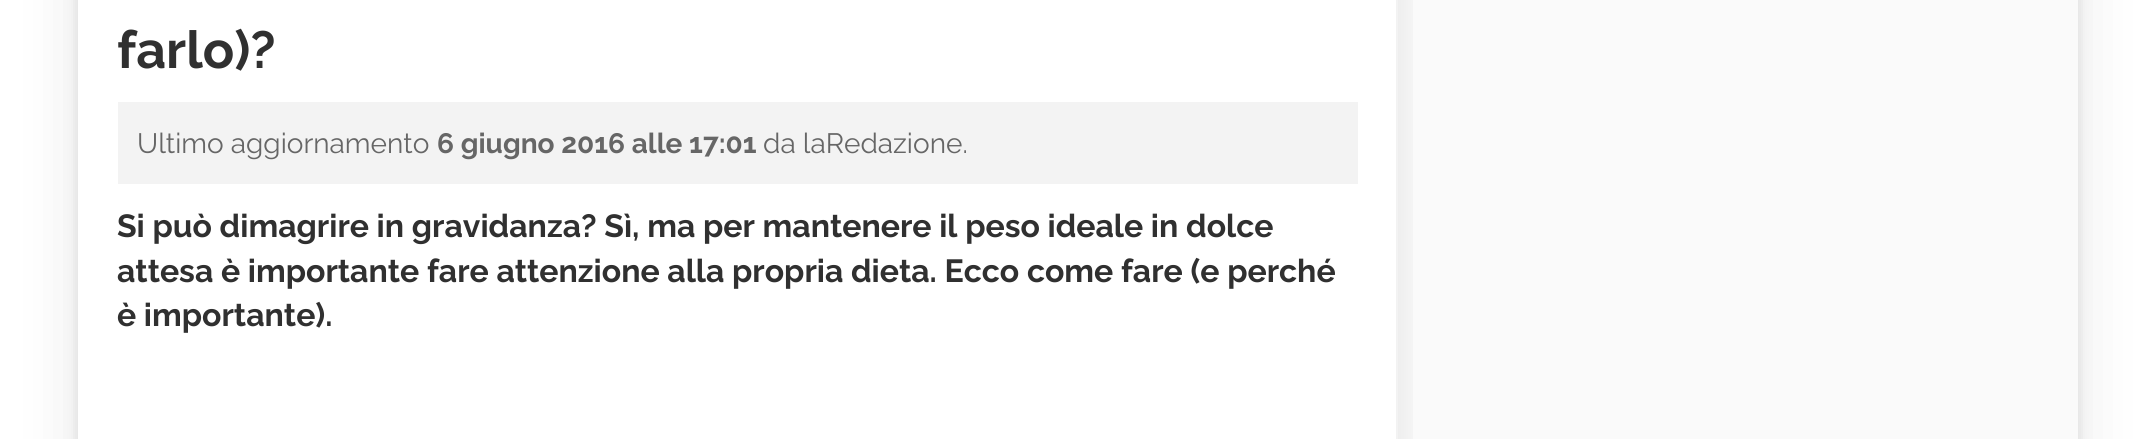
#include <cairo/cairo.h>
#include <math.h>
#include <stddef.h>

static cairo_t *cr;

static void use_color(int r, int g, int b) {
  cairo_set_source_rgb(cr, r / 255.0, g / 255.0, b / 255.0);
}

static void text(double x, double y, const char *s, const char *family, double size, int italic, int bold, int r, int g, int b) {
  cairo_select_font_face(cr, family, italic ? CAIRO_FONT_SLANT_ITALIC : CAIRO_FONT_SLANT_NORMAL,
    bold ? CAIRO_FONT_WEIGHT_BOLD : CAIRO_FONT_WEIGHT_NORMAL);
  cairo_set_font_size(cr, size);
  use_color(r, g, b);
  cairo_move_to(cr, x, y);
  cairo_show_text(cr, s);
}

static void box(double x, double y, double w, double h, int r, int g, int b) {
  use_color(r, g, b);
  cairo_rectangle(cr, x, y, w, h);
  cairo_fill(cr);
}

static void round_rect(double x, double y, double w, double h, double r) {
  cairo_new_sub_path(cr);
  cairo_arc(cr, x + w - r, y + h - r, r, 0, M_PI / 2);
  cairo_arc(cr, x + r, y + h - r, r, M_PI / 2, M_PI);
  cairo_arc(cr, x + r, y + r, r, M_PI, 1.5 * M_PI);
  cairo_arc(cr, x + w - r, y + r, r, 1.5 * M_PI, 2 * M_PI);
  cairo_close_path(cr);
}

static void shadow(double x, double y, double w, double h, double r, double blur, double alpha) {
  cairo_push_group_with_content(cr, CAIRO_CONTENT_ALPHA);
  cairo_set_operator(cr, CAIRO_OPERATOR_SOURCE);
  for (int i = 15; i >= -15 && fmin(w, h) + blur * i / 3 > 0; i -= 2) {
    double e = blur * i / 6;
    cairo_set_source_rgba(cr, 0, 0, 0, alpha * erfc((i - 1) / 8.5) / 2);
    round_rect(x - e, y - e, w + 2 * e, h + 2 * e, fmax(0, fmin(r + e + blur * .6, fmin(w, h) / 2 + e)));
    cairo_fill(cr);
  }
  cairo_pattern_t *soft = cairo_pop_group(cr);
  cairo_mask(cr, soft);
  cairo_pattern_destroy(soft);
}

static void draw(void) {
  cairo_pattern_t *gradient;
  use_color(255, 255, 255);
  cairo_paint(cr);
  cairo_save(cr);
  cairo_set_fill_rule(cr, CAIRO_FILL_RULE_EVEN_ODD);
  cairo_new_path(cr);
  cairo_move_to(cr, 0, 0);
  cairo_line_to(cr, 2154, 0);
  cairo_line_to(cr, 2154, 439);
  cairo_line_to(cr, 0, 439);
  cairo_close_path(cr);
  cairo_move_to(cr, 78, -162);
  cairo_line_to(cr, 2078, -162);
  cairo_line_to(cr, 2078, 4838);
  cairo_line_to(cr, 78, 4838);
  cairo_close_path(cr);
  cairo_clip(cr);
  use_color(0, 0, 0);
  shadow(78, -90, 2000, 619, 0, 30, 0.1);
  cairo_restore(cr);
  cairo_save(cr);
  cairo_set_fill_rule(cr, CAIRO_FILL_RULE_EVEN_ODD);
  cairo_new_path(cr);
  cairo_move_to(cr, 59, 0);
  cairo_line_to(cr, 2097, 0);
  cairo_line_to(cr, 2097, 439);
  cairo_line_to(cr, 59, 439);
  cairo_close_path(cr);
  cairo_move_to(cr, 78, -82);
  cairo_line_to(cr, 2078, -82);
  cairo_line_to(cr, 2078, 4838);
  cairo_line_to(cr, 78, 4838);
  cairo_close_path(cr);
  cairo_clip(cr);
  use_color(0, 0, 0);
  shadow(78, -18, 2000, 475, 0, 6, 0.1);
  cairo_restore(cr);
  box(118, 102, 1240, 82, 243, 243, 243);
  box(1398, 0, 680, 439, 250, 250, 250);
  gradient = cairo_pattern_create_linear(1396, 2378, 1426, 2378);
  cairo_pattern_add_color_stop_rgba(gradient, 0, 0, 0, 0, 0.05);
  cairo_pattern_add_color_stop_rgba(gradient, 1, 0, 0, 0, 0);
  cairo_set_source(cr, gradient);
  cairo_pattern_destroy(gradient);
  cairo_rectangle(cr, 1396, 0, 17, 439);
  cairo_fill(cr);
  text(117, 68, "farlo)?", "Raleway", 52, 0, 1, 48, 48, 48);
  text(137, 153, "Ultimo aggiornamento", "Raleway", 28, 0, 0, 102, 102, 102);
  text(437, 153, "6 giugno 2016 alle 17:01", "Raleway", 28, 0, 1, 102, 102, 102);
  text(763, 153, "da laRedazione.", "Raleway", 28, 0, 0, 102, 102, 102);
  text(117, 237, "Si può dimagrire in gravidanza? Sì, ma per mantenere il peso ideale in dolce", "Raleway", 32, 0, 1, 48, 48, 48);
  text(117, 282, "attesa è importante fare attenzione alla propria dieta. Ecco come fare (e perché", "Raleway", 32, 0, 1, 48, 48, 48);
  text(117, 326, "è importante).", "Raleway", 32, 0, 1, 48, 48, 48);
}

int main(void) {
  cairo_surface_t *surface = cairo_image_surface_create(CAIRO_FORMAT_RGB24, 2154, 439);
  cr = cairo_create(surface);
  cairo_font_options_t *options = cairo_font_options_create();
  cairo_font_options_set_hint_metrics(options, CAIRO_HINT_METRICS_OFF);
  cairo_font_options_set_hint_style(options, CAIRO_HINT_STYLE_NONE);
  cairo_set_font_options(cr, options);
  cairo_set_miter_limit(cr, 4);
  draw();
  cairo_surface_write_to_png(surface, "out.png");
  cairo_font_options_destroy(options);
  cairo_destroy(cr);
  cairo_surface_destroy(surface);
  return 0;
}
